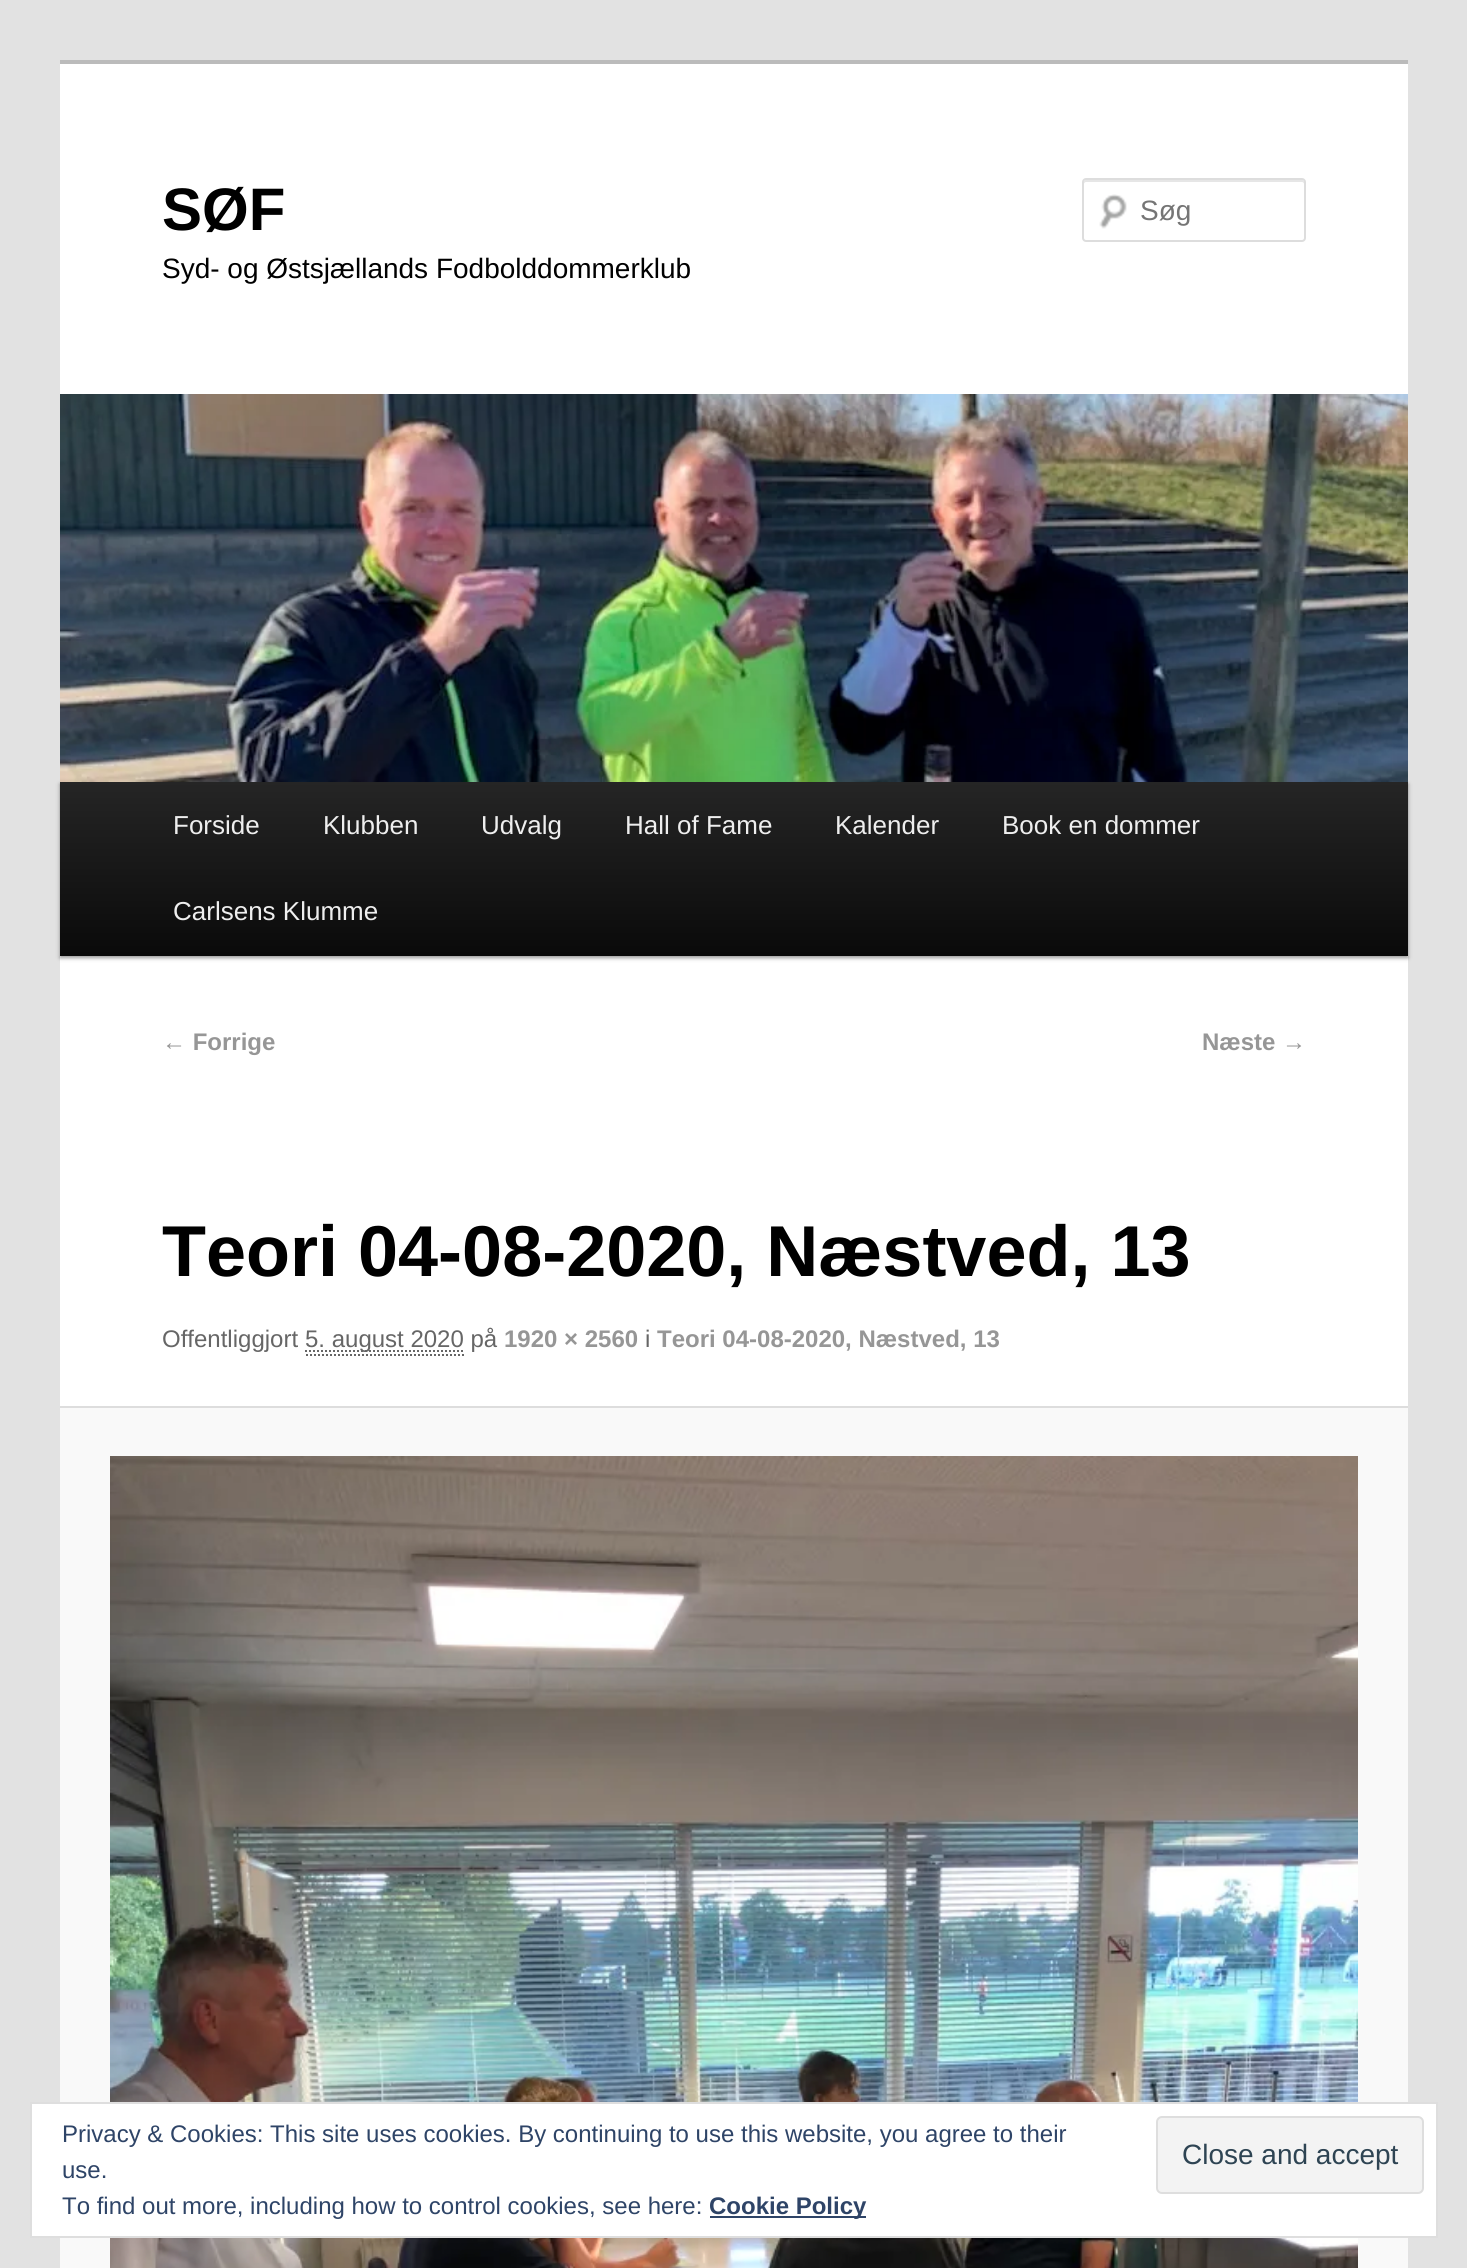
#include <cairo/cairo.h>
#include <math.h>
#include <stddef.h>

static cairo_t *cr;

static void use_color(int r, int g, int b) {
  cairo_set_source_rgb(cr, r / 255.0, g / 255.0, b / 255.0);
}

static void text(double x, double y, const char *s, const char *family, double size, int italic, int bold, int r, int g, int b) {
  cairo_select_font_face(cr, family, italic ? CAIRO_FONT_SLANT_ITALIC : CAIRO_FONT_SLANT_NORMAL,
    bold ? CAIRO_FONT_WEIGHT_BOLD : CAIRO_FONT_WEIGHT_NORMAL);
  cairo_set_font_size(cr, size);
  use_color(r, g, b);
  cairo_move_to(cr, x, y);
  cairo_show_text(cr, s);
}

static void box(double x, double y, double w, double h, int r, int g, int b) {
  use_color(r, g, b);
  cairo_rectangle(cr, x, y, w, h);
  cairo_fill(cr);
}

static void round_rect(double x, double y, double w, double h, double r) {
  cairo_new_sub_path(cr);
  cairo_arc(cr, x + w - r, y + h - r, r, 0, M_PI / 2);
  cairo_arc(cr, x + r, y + h - r, r, M_PI / 2, M_PI);
  cairo_arc(cr, x + r, y + r, r, M_PI, 1.5 * M_PI);
  cairo_arc(cr, x + w - r, y + r, r, 1.5 * M_PI, 2 * M_PI);
  cairo_close_path(cr);
}

static void shadow(double x, double y, double w, double h, double r, double blur, double alpha) {
  cairo_push_group_with_content(cr, CAIRO_CONTENT_ALPHA);
  cairo_set_operator(cr, CAIRO_OPERATOR_SOURCE);
  for (int i = 15; i >= -15 && fmin(w, h) + blur * i / 3 > 0; i -= 2) {
    double e = blur * i / 6;
    cairo_set_source_rgba(cr, 0, 0, 0, alpha * erfc((i - 1) / 8.5) / 2);
    round_rect(x - e, y - e, w + 2 * e, h + 2 * e, fmax(0, fmin(r + e + blur * .6, fmin(w, h) / 2 + e)));
    cairo_fill(cr);
  }
  cairo_pattern_t *soft = cairo_pop_group(cr);
  cairo_mask(cr, soft);
  cairo_pattern_destroy(soft);
}

static void picture(const char *path, double x, double y, double w, double h) {
  cairo_surface_t *image = cairo_image_surface_create_from_png(path);
  cairo_save(cr);
  cairo_set_source_surface(cr, image, x, y);
  cairo_rectangle(cr, x, y, w, h);
  cairo_fill(cr);
  cairo_restore(cr);
  cairo_surface_destroy(image);
}

static void draw(void) {
  cairo_pattern_t *gradient;
  use_color(226, 226, 226);
  cairo_paint(cr);
  box(60, 64, 1348, 1342, 255, 255, 255);
  box(60, 60, 1348, 4, 187, 187, 187);
  picture("img_01.png", 1099, 194, 28, 35);
  use_color(230, 230, 230);
  cairo_new_path(cr);
  cairo_move_to(cr, 1086, 182);
  cairo_line_to(cr, 1302, 182);
  cairo_curve_to(cr, 1303, 182, 1304, 183, 1304, 184);
  cairo_line_to(cr, 1304, 182);
  cairo_curve_to(cr, 1304, 181, 1303, 180, 1302, 180);
  cairo_line_to(cr, 1086, 180);
  cairo_curve_to(cr, 1085, 180, 1084, 181, 1084, 182);
  cairo_line_to(cr, 1084, 184);
  cairo_curve_to(cr, 1084, 183, 1085, 182, 1086, 182);
  cairo_close_path(cr);
  cairo_fill(cr);
  round_rect(1083, 179, 222, 62, 3);
  use_color(221, 221, 221);
  cairo_stroke(cr);
  use_color(0, 0, 0);
  shadow(60, 784, 1348, 174, 0, 2, 0.4);
  picture("img_02.png", 60, 394, 1348, 388);
  gradient = cairo_pattern_create_linear(734, 782, 734, 956);
  cairo_pattern_add_color_stop_rgba(gradient, 0, 0.145, 0.145, 0.145, 1);
  cairo_pattern_add_color_stop_rgba(gradient, 1, 0.039, 0.039, 0.039, 1);
  cairo_set_source(cr, gradient);
  cairo_pattern_destroy(gradient);
  cairo_rectangle(cr, 60, 782, 1348, 174);
  cairo_fill(cr);
  cairo_new_path(cr);
  cairo_move_to(cr, 306, 1355);
  cairo_line_to(cr, 464, 1355);
  use_color(102, 102, 102);
  cairo_set_dash(cr, (double[]){2, 2}, 2, 0);
  cairo_stroke(cr);
  cairo_new_path(cr);
  cairo_move_to(cr, 305, 1351);
  cairo_line_to(cr, 464, 1351);
  cairo_stroke(cr);
  box(60, 1408, 1348, 860, 249, 249, 249);
  box(60, 1406, 1348, 2, 221, 221, 221);
  picture("img_03.png", 110, 1456, 1248, 812);
  use_color(255, 255, 255);
  cairo_rectangle(cr, 31, 2103, 1406, 134);
  cairo_fill_preserve(cr);
  use_color(222, 222, 222);
  cairo_set_dash(cr, NULL, 0, 0);
  cairo_stroke(cr);
  use_color(243, 243, 243);
  round_rect(1157, 2117, 266, 76, 5);
  cairo_fill_preserve(cr);
  use_color(222, 222, 222);
  cairo_stroke(cr);
  box(710, 2216, 156, 2, 46, 68, 103);
  text(162, 230, "SØF", "Liberation Sans", 60, 0, 1, 0, 0, 0);
  text(162, 278, "Syd- og Østsjællands Fodbolddommerklub", "Liberation Sans", 28, 0, 0, 0, 0, 0);
  text(1140, 220, "Søg", "Liberation Sans", 28, 0, 0, 117, 117, 117);
  text(173, 834, "Forside", "Liberation Sans", 26, 0, 0, 238, 238, 238);
  text(323, 834, "Klubben", "Liberation Sans", 26, 0, 0, 238, 238, 238);
  text(481, 834, "Udvalg", "Liberation Sans", 26, 0, 0, 238, 238, 238);
  text(625, 834, "Hall of Fame", "Liberation Sans", 26, 0, 0, 238, 238, 238);
  text(835, 834, "Kalender", "Liberation Sans", 26, 0, 0, 238, 238, 238);
  text(1002, 834, "Book en dommer", "Liberation Sans", 26, 0, 0, 238, 238, 238);
  text(173, 920, "Carlsens Klumme", "Liberation Sans", 26, 0, 0, 238, 238, 238);
  text(162, 1050, "← Forrige", "Liberation Sans", 24, 0, 1, 150, 150, 150);
  text(1202, 1050, "Næste →", "Liberation Sans", 24, 0, 1, 150, 150, 150);
  text(162, 1276, "Teori 04-08-2020, Næstved, 13", "Liberation Sans", 72, 0, 1, 0, 0, 0);
  text(162, 1347, "Offentliggjort", "Liberation Sans", 24, 0, 0, 102, 102, 102);
  text(305, 1347, "5. august 2020 på", "Liberation Sans", 24, 0, 0, 102, 102, 102);
  text(504, 1347, "1920 × 2560", "Liberation Sans", 24, 0, 1, 150, 150, 150);
  text(645, 1347, "i", "Liberation Sans", 24, 0, 0, 102, 102, 102);
  text(657, 1347, "Teori 04-08-2020, Næstved, 13", "Liberation Sans", 24, 0, 1, 150, 150, 150);
  text(62, 2142, "Privacy & Cookies: This site uses cookies. By continuing to use this website, you agree to their", "Liberation Sans", 24, 0, 0, 46, 68, 103);
  text(1182, 2164, "Close and accept", "Liberation Sans", 28, 0, 0, 46, 68, 83);
  text(62, 2178, "use.", "Liberation Sans", 24, 0, 0, 46, 68, 103);
  text(62, 2214, "To find out more, including how to control cookies, see here:", "Liberation Sans", 24, 0, 0, 46, 68, 103);
  text(709, 2214, "Cookie Policy", "Liberation Sans", 24, 0, 1, 46, 68, 103);
}

int main(void) {
  cairo_surface_t *surface = cairo_image_surface_create(CAIRO_FORMAT_RGB24, 1467, 2268);
  cr = cairo_create(surface);
  cairo_font_options_t *options = cairo_font_options_create();
  cairo_font_options_set_hint_metrics(options, CAIRO_HINT_METRICS_OFF);
  cairo_font_options_set_hint_style(options, CAIRO_HINT_STYLE_NONE);
  cairo_set_font_options(cr, options);
  cairo_set_miter_limit(cr, 4);
  draw();
  cairo_surface_write_to_png(surface, "out.png");
  cairo_font_options_destroy(options);
  cairo_destroy(cr);
  cairo_surface_destroy(surface);
  return 0;
}
